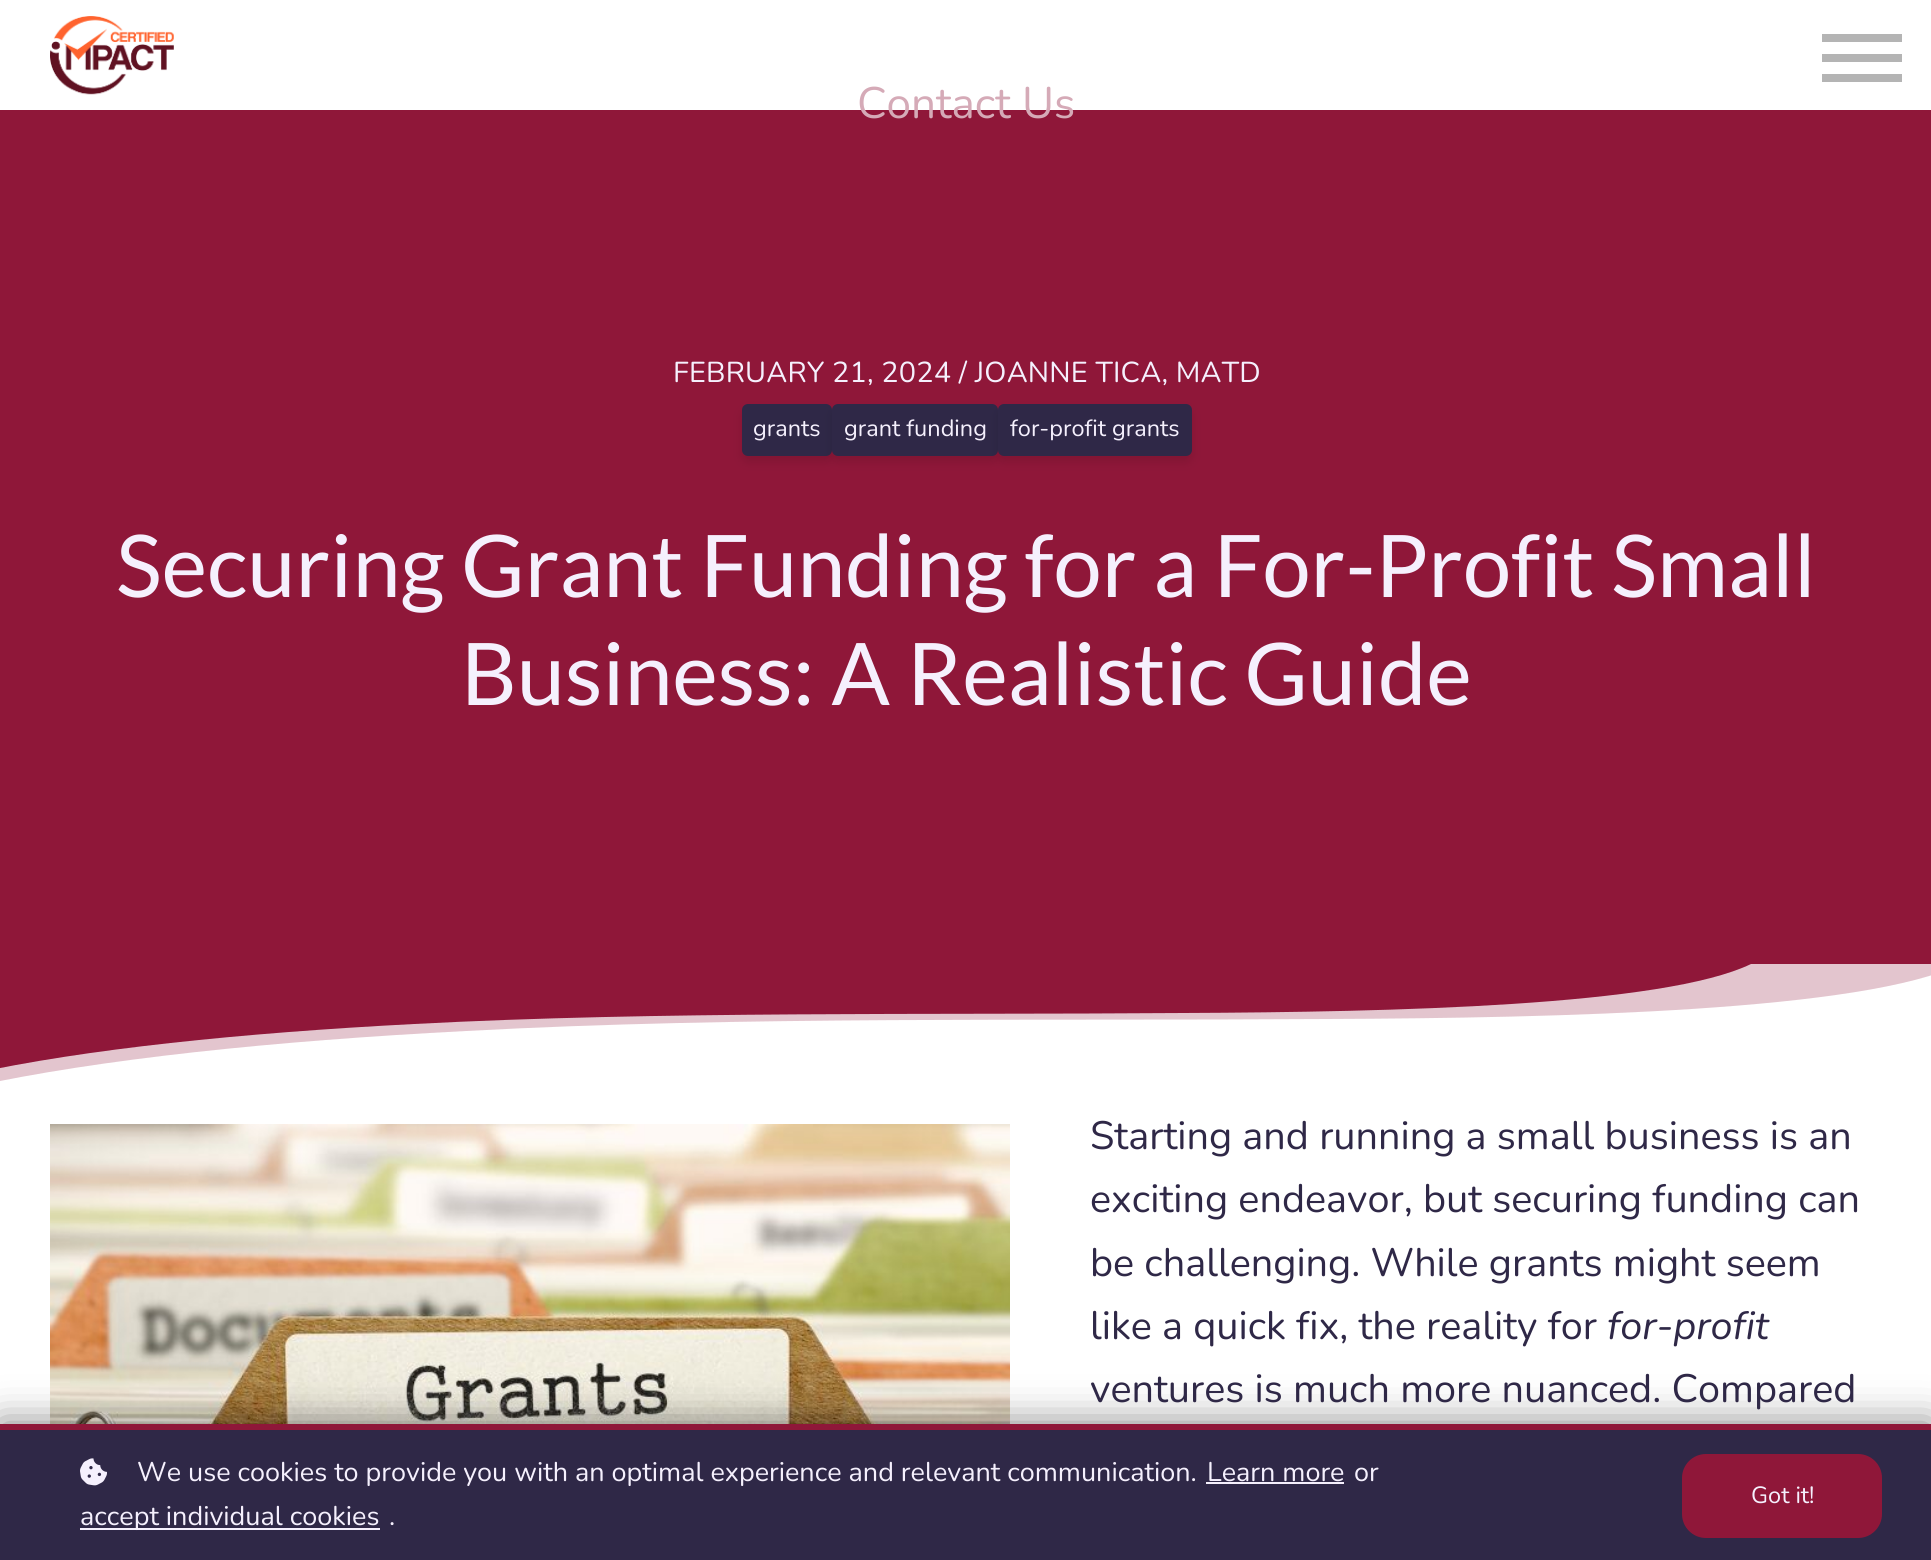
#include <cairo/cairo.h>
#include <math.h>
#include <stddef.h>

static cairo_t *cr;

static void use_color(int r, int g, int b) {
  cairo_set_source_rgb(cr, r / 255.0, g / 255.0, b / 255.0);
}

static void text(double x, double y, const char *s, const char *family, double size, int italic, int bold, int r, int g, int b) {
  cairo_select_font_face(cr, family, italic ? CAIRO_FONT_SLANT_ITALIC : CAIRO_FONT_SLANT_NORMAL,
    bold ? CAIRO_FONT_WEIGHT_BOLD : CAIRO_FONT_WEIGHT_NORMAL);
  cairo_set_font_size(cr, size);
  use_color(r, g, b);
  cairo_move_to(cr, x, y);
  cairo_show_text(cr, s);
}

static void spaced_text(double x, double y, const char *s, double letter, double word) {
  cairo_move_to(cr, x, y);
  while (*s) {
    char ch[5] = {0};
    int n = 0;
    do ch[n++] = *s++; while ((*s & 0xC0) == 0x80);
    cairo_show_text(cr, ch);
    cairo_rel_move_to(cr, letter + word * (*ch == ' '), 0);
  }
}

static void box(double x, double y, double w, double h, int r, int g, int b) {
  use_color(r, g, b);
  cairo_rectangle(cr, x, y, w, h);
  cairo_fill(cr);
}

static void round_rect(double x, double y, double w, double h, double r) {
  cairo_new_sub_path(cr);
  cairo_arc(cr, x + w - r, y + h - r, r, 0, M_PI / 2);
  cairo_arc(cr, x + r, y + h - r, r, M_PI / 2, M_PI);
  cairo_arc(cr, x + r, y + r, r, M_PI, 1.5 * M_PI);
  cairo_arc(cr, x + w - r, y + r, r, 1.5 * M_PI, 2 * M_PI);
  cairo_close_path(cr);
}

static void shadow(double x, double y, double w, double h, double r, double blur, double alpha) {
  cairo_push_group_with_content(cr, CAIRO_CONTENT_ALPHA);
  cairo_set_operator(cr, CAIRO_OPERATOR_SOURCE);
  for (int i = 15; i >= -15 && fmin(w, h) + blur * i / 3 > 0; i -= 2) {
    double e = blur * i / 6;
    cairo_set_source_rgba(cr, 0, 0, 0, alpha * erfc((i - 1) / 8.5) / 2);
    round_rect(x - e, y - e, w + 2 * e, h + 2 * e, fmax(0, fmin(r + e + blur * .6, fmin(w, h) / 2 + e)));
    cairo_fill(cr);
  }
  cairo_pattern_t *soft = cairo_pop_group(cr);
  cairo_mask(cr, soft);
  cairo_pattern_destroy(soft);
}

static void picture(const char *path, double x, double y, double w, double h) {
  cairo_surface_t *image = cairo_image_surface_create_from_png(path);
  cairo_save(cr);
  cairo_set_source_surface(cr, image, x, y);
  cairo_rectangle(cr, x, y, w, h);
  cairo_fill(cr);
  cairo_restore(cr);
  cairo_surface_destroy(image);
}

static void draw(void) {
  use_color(255, 255, 255);
  cairo_paint(cr);
  picture("img_01.png", 50, 16, 124, 79);
  box(1822, 74, 80, 8, 180, 180, 180);
  box(1822, 34, 80, 8, 180, 180, 180);
  box(1822, 54, 80, 8, 180, 180, 180);
  box(0, 110, 1931, 854, 143, 23, 57);
  use_color(0, 0, 0);
  shadow(742, 410, 90, 52, 6, 5, 0.1);
  use_color(47, 40, 71);
  round_rect(742, 404, 90, 52, 6);
  cairo_fill(cr);
  use_color(0, 0, 0);
  shadow(832, 410, 166, 52, 6, 5, 0.1);
  use_color(47, 40, 71);
  round_rect(832, 404, 166, 52, 6);
  cairo_fill(cr);
  use_color(0, 0, 0);
  shadow(998, 410, 194, 52, 6, 5, 0.1);
  use_color(47, 40, 71);
  round_rect(998, 404, 194, 52, 6);
  cairo_fill(cr);
  use_color(227, 197, 206);
  cairo_new_path(cr);
  cairo_move_to(cr, 466, 1031);
  cairo_curve_to(cr, 741, 1016, 1040, 1021, 1327, 1019);
  cairo_curve_to(cr, 1561, 1018, 1864, 1011, 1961, 964);
  cairo_line_to(cr, -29, 964);
  cairo_line_to(cr, -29, 1087);
  cairo_curve_to(cr, 99, 1059, 273, 1041, 466, 1031);
  cairo_close_path(cr);
  cairo_fill(cr);
  use_color(143, 23, 57);
  cairo_new_path(cr);
  cairo_move_to(cr, 414, 1024);
  cairo_curve_to(cr, 660, 1011, 927, 1015, 1184, 1013);
  cairo_curve_to(cr, 1393, 1012, 1664, 1006, 1751, 964);
  cairo_line_to(cr, -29, 964);
  cairo_line_to(cr, -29, 1074);
  cairo_curve_to(cr, 85, 1049, 241, 1033, 414, 1024);
  cairo_close_path(cr);
  cairo_fill(cr);
  picture("img_02.png", 50, 1124, 960, 300);
  use_color(0, 0, 0);
  shadow(0, 1424, 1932, 136, 0, 20, 0.5);
  box(0, 1430, 1931, 130, 47, 40, 71);
  box(0, 1424, 1931, 6, 143, 23, 57);
  picture("img_03.png", 80, 1458, 27, 28);
  box(1206, 1482, 138, 2, 245, 240, 253);
  box(80, 1528, 300, 2, 245, 240, 253);
  use_color(143, 23, 57);
  round_rect(1682, 1454, 200, 84, 24);
  cairo_fill(cr);
  text(857, 118, "Contact Us", "Nunito", 44, 0, 0, 213, 170, 183);
  cairo_set_font_size(cr, 28.8);
  use_color(245, 240, 253);
  spaced_text(673, 382, "FEBRUARY 21, 2024 / JOANNE TICA, MATD", 0.2, 0);
  text(753, 436, "grants", "Nunito", 23.5, 0, 0, 245, 240, 253);
  text(844, 436, "grant funding", "Nunito", 23.5, 0, 0, 245, 240, 253);
  text(1010, 436, "for-profit grants", "Nunito", 23.5, 0, 0, 245, 240, 253);
  text(116, 597, "Securing Grant Funding for a For-Profit Small", "Lato", 86.4, 0, 0, 245, 240, 253);
  text(461, 705, "Business: A Realistic Guide", "Lato", 86.4, 0, 0, 245, 240, 253);
  text(1090, 1149, "Starting and running a small business is an", "Nunito", 39.6, 0, 0, 47, 40, 71);
  text(1090, 1212, "exciting endeavor, but securing funding can", "Nunito", 39.6, 0, 0, 47, 40, 71);
  text(1090, 1276, "be challenging. While grants might seem", "Nunito", 39.6, 0, 0, 47, 40, 71);
  text(1090, 1339, "like a quick fix, the reality for", "Nunito", 39.6, 0, 0, 47, 40, 71);
  text(1607, 1339, "for-profit", "Nunito", 39.6, 1, 0, 47, 40, 71);
  text(1090, 1402, "ventures is much more nuanced. Compared", "Nunito", 39.6, 0, 0, 47, 40, 71);
  text(137, 1481, "We use cookies to provide you with an optimal experience and relevant communication.", "Nunito", 27, 0, 0, 245, 240, 253);
  text(1207, 1481, "Learn more", "Nunito", 27, 0, 0, 245, 240, 253);
  text(1354, 1481, "or", "Nunito", 27, 0, 0, 245, 240, 253);
  text(80, 1525, "accept individual cookies", "Nunito", 27, 0, 0, 245, 240, 253);
  text(389, 1525, ".", "Nunito", 27, 0, 0, 245, 240, 253);
  text(1751, 1503, "Got it!", "Nunito", 23.5, 0, 0, 245, 240, 253);
}

int main(void) {
  cairo_surface_t *surface = cairo_image_surface_create(CAIRO_FORMAT_RGB24, 1931, 1560);
  cr = cairo_create(surface);
  cairo_font_options_t *options = cairo_font_options_create();
  cairo_font_options_set_hint_metrics(options, CAIRO_HINT_METRICS_OFF);
  cairo_font_options_set_hint_style(options, CAIRO_HINT_STYLE_NONE);
  cairo_set_font_options(cr, options);
  cairo_set_miter_limit(cr, 4);
  draw();
  cairo_surface_write_to_png(surface, "out.png");
  cairo_font_options_destroy(options);
  cairo_destroy(cr);
  cairo_surface_destroy(surface);
  return 0;
}
